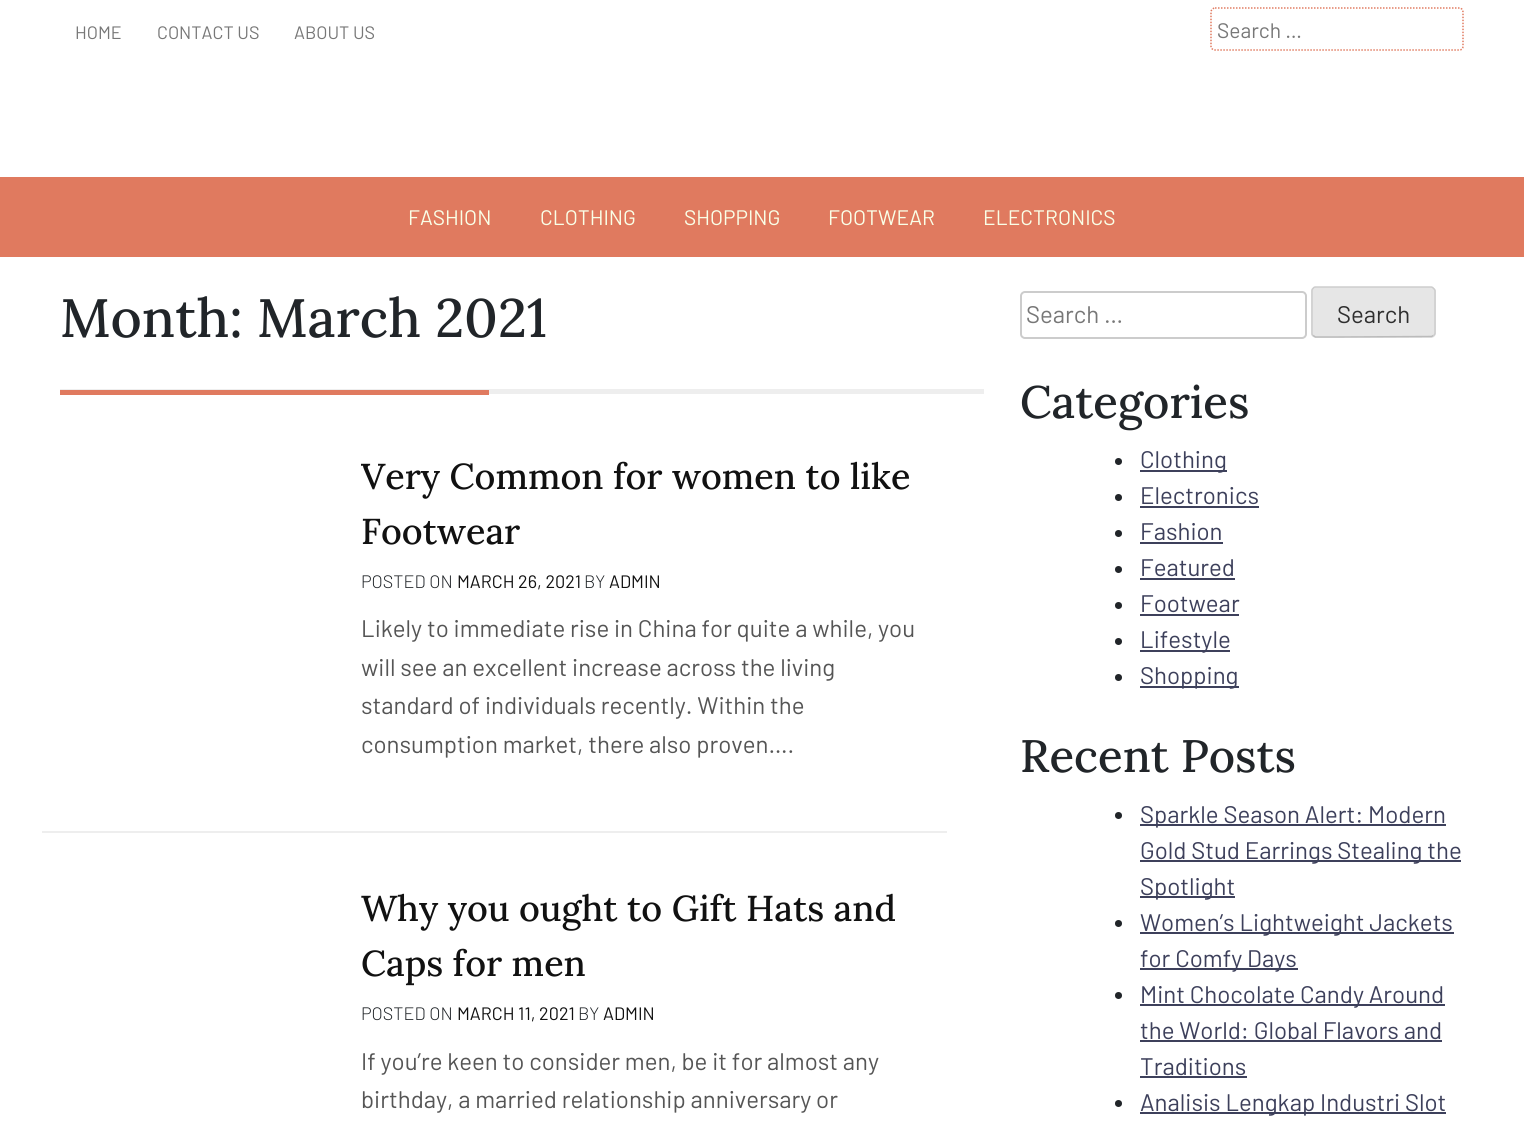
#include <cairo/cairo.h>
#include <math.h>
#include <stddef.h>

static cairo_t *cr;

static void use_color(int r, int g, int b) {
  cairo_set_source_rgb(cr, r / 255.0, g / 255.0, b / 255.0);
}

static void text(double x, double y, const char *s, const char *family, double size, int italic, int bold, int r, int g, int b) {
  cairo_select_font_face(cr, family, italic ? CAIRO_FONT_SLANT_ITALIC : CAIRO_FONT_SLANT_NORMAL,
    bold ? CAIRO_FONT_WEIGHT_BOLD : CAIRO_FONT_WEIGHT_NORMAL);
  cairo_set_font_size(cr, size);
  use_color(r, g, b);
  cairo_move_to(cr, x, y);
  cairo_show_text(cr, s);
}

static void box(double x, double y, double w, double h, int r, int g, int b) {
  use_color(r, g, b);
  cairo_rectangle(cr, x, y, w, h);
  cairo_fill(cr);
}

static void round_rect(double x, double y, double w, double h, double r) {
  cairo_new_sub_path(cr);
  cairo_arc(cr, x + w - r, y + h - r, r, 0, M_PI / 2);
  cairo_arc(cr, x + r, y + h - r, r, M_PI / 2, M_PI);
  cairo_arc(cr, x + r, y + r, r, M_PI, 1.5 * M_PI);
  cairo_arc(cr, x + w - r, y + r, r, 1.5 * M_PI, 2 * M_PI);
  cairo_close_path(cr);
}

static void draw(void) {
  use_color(255, 255, 255);
  cairo_paint(cr);
  cairo_new_path(cr);
  cairo_move_to(cr, 1215, 8);
  cairo_line_to(cr, 1459.5, 8);
  cairo_curve_to(cr, 1461.5, 8, 1463, 10, 1463, 12);
  cairo_line_to(cr, 1463, 46.5);
  cairo_curve_to(cr, 1463, 48.5, 1461.5, 50, 1459.5, 50);
  cairo_line_to(cr, 1215, 50);
  cairo_curve_to(cr, 1213, 50, 1211, 48.5, 1211, 46.5);
  cairo_line_to(cr, 1211, 12);
  cairo_curve_to(cr, 1211, 10, 1213, 8, 1215, 8);
  cairo_close_path(cr);
  use_color(224, 122, 95);
  cairo_set_line_width(cr, 1.5);
  cairo_set_dash(cr, (double[]){1.5, 1.5}, 2, 0);
  cairo_stroke(cr);
  box(0, 177, 1524, 80, 224, 122, 95);
  box(60, 389, 924, 5, 238, 238, 238);
  box(60, 390, 429, 5, 224, 122, 95);
  box(42, 831, 905, 2, 238, 238, 238);
  round_rect(1021, 292, 285, 46, 4);
  use_color(204, 204, 204);
  cairo_set_line_width(cr, 2);
  cairo_set_dash(cr, NULL, 0, 0);
  cairo_stroke(cr);
  use_color(230, 230, 230);
  round_rect(1311, 287, 125, 51, 5);
  cairo_fill(cr);
  cairo_new_path(cr);
  cairo_move_to(cr, 1433.5, 335.5);
  cairo_line_to(cr, 1431.5, 336.5);
  cairo_line_to(cr, 1335, 337);
  cairo_line_to(cr, 1315.5, 337);
  cairo_line_to(cr, 1313, 335.5);
  use_color(187, 187, 187);
  cairo_set_line_width(cr, 1.5);
  cairo_stroke(cr);
  cairo_new_path(cr);
  cairo_move_to(cr, 1313, 335.5);
  cairo_curve_to(cr, 1312, 335, 1312, 334, 1312, 333);
  cairo_line_to(cr, 1312, 291);
  cairo_curve_to(cr, 1312, 290, 1312, 289, 1313, 288.5);
  cairo_curve_to(cr, 1313.5, 287.5, 1314.5, 287, 1315.5, 287);
  cairo_line_to(cr, 1431, 287);
  cairo_curve_to(cr, 1432, 287, 1433, 287.5, 1433.5, 288.5);
  cairo_curve_to(cr, 1434.5, 289, 1435, 290, 1435, 291);
  cairo_line_to(cr, 1435, 333);
  cairo_curve_to(cr, 1435, 334, 1434.5, 335, 1433.5, 335.5);
  use_color(204, 204, 204);
  cairo_stroke(cr);
  use_color(33, 37, 41);
  cairo_arc(cr, 1118.5, 461.5, 3.5, 0, 2 * M_PI);
  cairo_fill(cr);
  box(1140, 470, 87, 2, 61, 64, 91);
  use_color(33, 37, 41);
  cairo_arc(cr, 1118.5, 497.5, 3.5, 0, 2 * M_PI);
  cairo_fill(cr);
  box(1140, 506, 119, 2, 61, 64, 91);
  use_color(33, 37, 41);
  cairo_arc(cr, 1118.5, 533.5, 3.5, 0, 2 * M_PI);
  cairo_fill(cr);
  box(1140, 542, 83, 2, 61, 64, 91);
  use_color(33, 37, 41);
  cairo_arc(cr, 1118.5, 569.5, 3.5, 0, 2 * M_PI);
  cairo_fill(cr);
  box(1140, 578, 95, 2, 61, 64, 91);
  use_color(33, 37, 41);
  cairo_arc(cr, 1118.5, 605.5, 3.5, 0, 2 * M_PI);
  cairo_fill(cr);
  box(1140, 614, 99, 2, 61, 64, 91);
  use_color(33, 37, 41);
  cairo_arc(cr, 1118.5, 641.5, 3.5, 0, 2 * M_PI);
  cairo_fill(cr);
  box(1140, 650, 90, 2, 61, 64, 91);
  use_color(33, 37, 41);
  cairo_arc(cr, 1118.5, 677.5, 3.5, 0, 2 * M_PI);
  cairo_fill(cr);
  box(1140, 686, 99, 2, 61, 64, 91);
  use_color(33, 37, 41);
  cairo_arc(cr, 1118.5, 815.5, 3.5, 0, 2 * M_PI);
  cairo_fill(cr);
  box(1140, 824, 306, 2, 61, 64, 91);
  box(1140, 860, 321, 2, 61, 64, 91);
  box(1140, 896, 95, 2, 61, 64, 91);
  use_color(33, 37, 41);
  cairo_arc(cr, 1118.5, 923.5, 3.5, 0, 2 * M_PI);
  cairo_fill(cr);
  box(1140, 932, 314, 2, 61, 64, 91);
  box(1140, 968, 158, 2, 61, 64, 91);
  use_color(33, 37, 41);
  cairo_arc(cr, 1118.5, 995.5, 3.5, 0, 2 * M_PI);
  cairo_fill(cr);
  box(1140, 1004, 305, 2, 61, 64, 91);
  box(1140, 1040, 302, 2, 61, 64, 91);
  box(1140, 1076, 107, 2, 61, 64, 91);
  use_color(33, 37, 41);
  cairo_arc(cr, 1118.5, 1103.5, 3.5, 0, 2 * M_PI);
  cairo_fill(cr);
  box(1140, 1112, 306, 2, 61, 64, 91);
  text(75, 39, "HOME", "Barlow", 18, 0, 0, 119, 119, 119);
  text(157, 39, "CONTACT US", "Barlow", 18, 0, 0, 119, 119, 119);
  text(294, 39, "ABOUT US", "Barlow", 18, 0, 0, 119, 119, 119);
  text(1217, 38, "Search …", "Barlow", 21, 0, 0, 119, 119, 119);
  text(408, 225, "FASHION", "Barlow", 21, 0, 0, 249, 255, 231);
  text(540, 225, "CLOTHING", "Barlow", 21, 0, 0, 249, 255, 231);
  text(684, 225, "SHOPPING", "Barlow", 21, 0, 0, 249, 255, 231);
  text(828, 225, "FOOTWEAR", "Barlow", 21, 0, 0, 249, 255, 231);
  text(983, 225, "ELECTRONICS", "Barlow", 21, 0, 0, 249, 255, 231);
  text(60, 337, "Month: March 2021", "Lora Medium", 54, 0, 0, 33, 37, 41);
  text(361, 489, "Very Common for women to like", "Lora Medium", 36, 0, 0, 17, 17, 17);
  text(361, 544, "Footwear", "Lora Medium", 36, 0, 0, 17, 17, 17);
  text(361, 588, "POSTED ON", "Barlow Light", 18, 0, 0, 33, 37, 41);
  text(457, 588, "MARCH 26, 2021", "Barlow", 18, 0, 0, 17, 17, 17);
  text(584, 588, "BY", "Barlow Light", 18, 0, 0, 33, 37, 41);
  text(609, 588, "ADMIN", "Barlow", 18, 0, 0, 17, 17, 17);
  text(361, 637, "Likely to immediate rise in China for quite a while, you", "Barlow", 24, 0, 0, 85, 85, 85);
  text(361, 676, "will see an excellent increase across the living", "Barlow", 24, 0, 0, 85, 85, 85);
  text(361, 714, "standard of individuals recently. Within the", "Barlow", 24, 0, 0, 85, 85, 85);
  text(361, 753, "consumption market, there also proven….", "Barlow", 24, 0, 0, 85, 85, 85);
  text(361, 921, "Why you ought to Gift Hats and", "Lora Medium", 36, 0, 0, 17, 17, 17);
  text(361, 976, "Caps for men", "Lora Medium", 36, 0, 0, 17, 17, 17);
  text(361, 1020, "POSTED ON", "Barlow Light", 18, 0, 0, 33, 37, 41);
  text(457, 1020, "MARCH 11, 2021", "Barlow", 18, 0, 0, 17, 17, 17);
  text(578, 1020, "BY", "Barlow Light", 18, 0, 0, 33, 37, 41);
  text(603, 1020, "ADMIN", "Barlow", 18, 0, 0, 17, 17, 17);
  text(361, 1070, "If you’re keen to consider men, be it for almost any", "Barlow", 24, 0, 0, 85, 85, 85);
  text(361, 1108, "birthday, a married relationship anniversary or", "Barlow", 24, 0, 0, 85, 85, 85);
  text(1026, 323, "Search …", "Barlow", 24, 0, 0, 119, 119, 119);
  text(1337, 323, "Search", "Barlow", 24, 0, 0, 46, 46, 46);
  text(1020, 418, "Categories", "Lora Medium", 45.5, 0, 0, 33, 37, 41);
  text(1140, 468, "Clothing", "Barlow", 24, 0, 0, 61, 64, 91);
  text(1140, 504, "Electronics", "Barlow", 24, 0, 0, 61, 64, 91);
  text(1140, 540, "Fashion", "Barlow", 24, 0, 0, 61, 64, 91);
  text(1140, 576, "Featured", "Barlow", 24, 0, 0, 61, 64, 91);
  text(1140, 612, "Footwear", "Barlow", 24, 0, 0, 61, 64, 91);
  text(1140, 648, "Lifestyle", "Barlow", 24, 0, 0, 61, 64, 91);
  text(1140, 684, "Shopping", "Barlow", 24, 0, 0, 61, 64, 91);
  text(1020, 772, "Recent Posts", "Lora Medium", 45.5, 0, 0, 33, 37, 41);
  text(1140, 823, "Sparkle Season Alert: Modern", "Barlow", 24, 0, 0, 61, 64, 91);
  text(1140, 859, "Gold Stud Earrings Stealing the", "Barlow", 24, 0, 0, 61, 64, 91);
  text(1140, 895, "Spotlight", "Barlow", 24, 0, 0, 61, 64, 91);
  text(1140, 931, "Women’s Lightweight Jackets", "Barlow", 24, 0, 0, 61, 64, 91);
  text(1140, 967, "for Comfy Days", "Barlow", 24, 0, 0, 61, 64, 91);
  text(1140, 1003, "Mint Chocolate Candy Around", "Barlow", 24, 0, 0, 61, 64, 91);
  text(1140, 1039, "the World: Global Flavors and", "Barlow", 24, 0, 0, 61, 64, 91);
  text(1140, 1075, "Traditions", "Barlow", 24, 0, 0, 61, 64, 91);
  text(1140, 1111, "Analisis Lengkap Industri Slot", "Barlow", 24, 0, 0, 61, 64, 91);
}

int main(void) {
  cairo_surface_t *surface = cairo_image_surface_create(CAIRO_FORMAT_RGB24, 1524, 1129);
  cr = cairo_create(surface);
  cairo_font_options_t *options = cairo_font_options_create();
  cairo_font_options_set_hint_metrics(options, CAIRO_HINT_METRICS_OFF);
  cairo_font_options_set_hint_style(options, CAIRO_HINT_STYLE_NONE);
  cairo_set_font_options(cr, options);
  cairo_set_miter_limit(cr, 4);
  draw();
  cairo_surface_write_to_png(surface, "out.png");
  cairo_font_options_destroy(options);
  cairo_destroy(cr);
  cairo_surface_destroy(surface);
  return 0;
}
